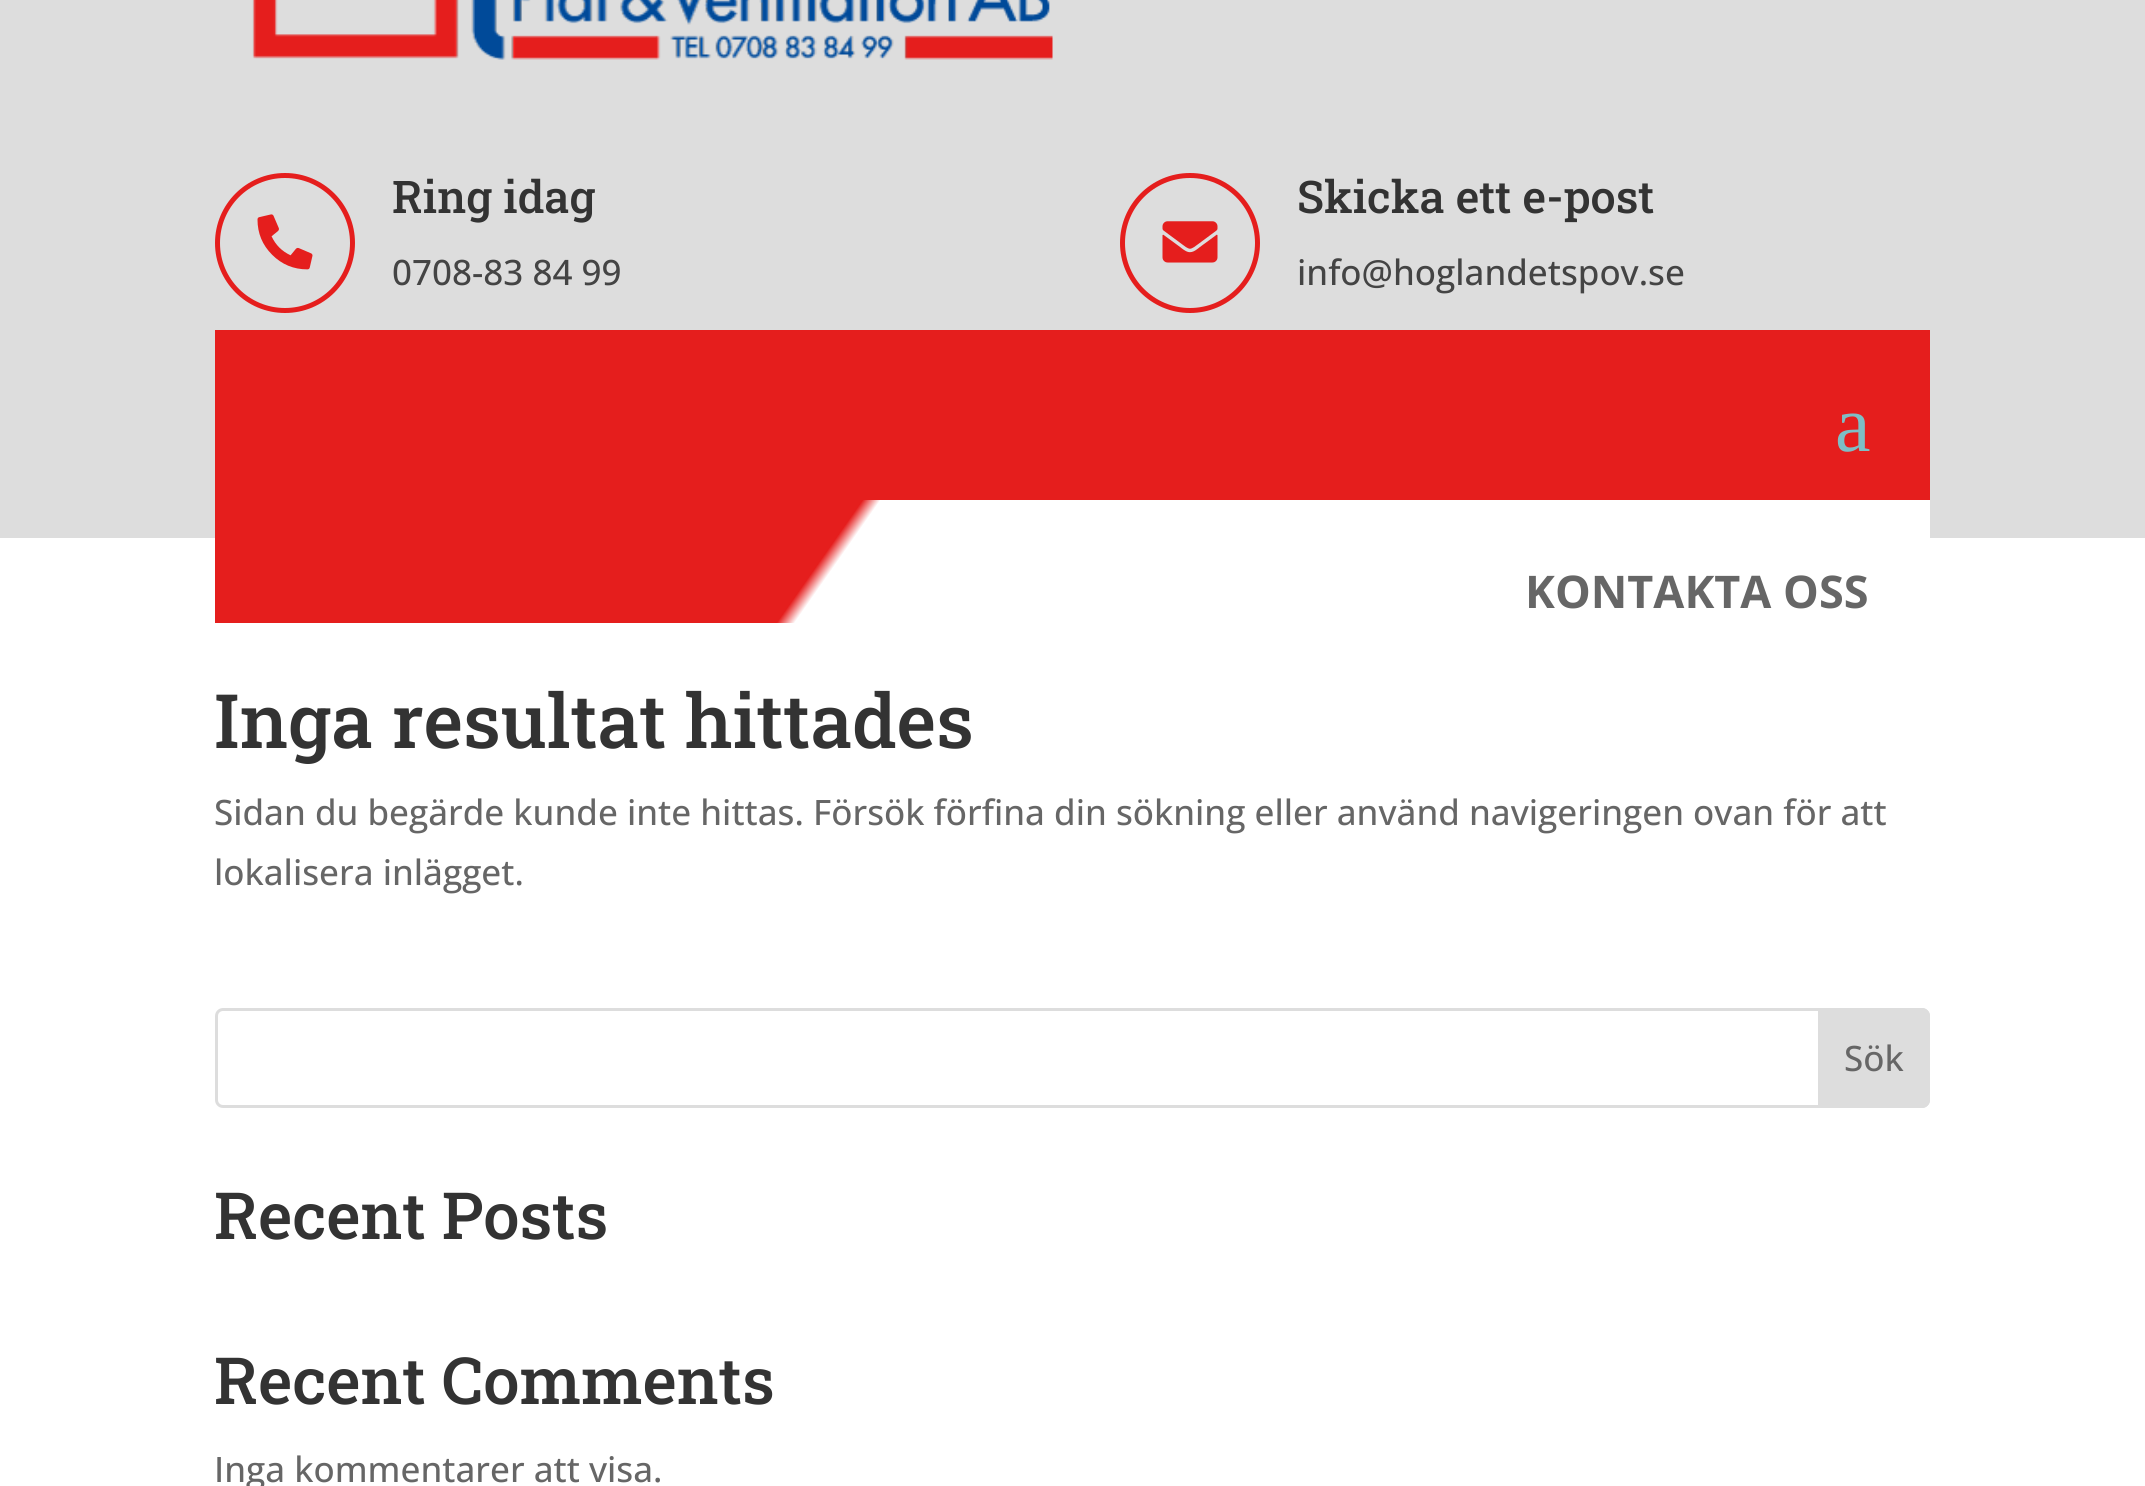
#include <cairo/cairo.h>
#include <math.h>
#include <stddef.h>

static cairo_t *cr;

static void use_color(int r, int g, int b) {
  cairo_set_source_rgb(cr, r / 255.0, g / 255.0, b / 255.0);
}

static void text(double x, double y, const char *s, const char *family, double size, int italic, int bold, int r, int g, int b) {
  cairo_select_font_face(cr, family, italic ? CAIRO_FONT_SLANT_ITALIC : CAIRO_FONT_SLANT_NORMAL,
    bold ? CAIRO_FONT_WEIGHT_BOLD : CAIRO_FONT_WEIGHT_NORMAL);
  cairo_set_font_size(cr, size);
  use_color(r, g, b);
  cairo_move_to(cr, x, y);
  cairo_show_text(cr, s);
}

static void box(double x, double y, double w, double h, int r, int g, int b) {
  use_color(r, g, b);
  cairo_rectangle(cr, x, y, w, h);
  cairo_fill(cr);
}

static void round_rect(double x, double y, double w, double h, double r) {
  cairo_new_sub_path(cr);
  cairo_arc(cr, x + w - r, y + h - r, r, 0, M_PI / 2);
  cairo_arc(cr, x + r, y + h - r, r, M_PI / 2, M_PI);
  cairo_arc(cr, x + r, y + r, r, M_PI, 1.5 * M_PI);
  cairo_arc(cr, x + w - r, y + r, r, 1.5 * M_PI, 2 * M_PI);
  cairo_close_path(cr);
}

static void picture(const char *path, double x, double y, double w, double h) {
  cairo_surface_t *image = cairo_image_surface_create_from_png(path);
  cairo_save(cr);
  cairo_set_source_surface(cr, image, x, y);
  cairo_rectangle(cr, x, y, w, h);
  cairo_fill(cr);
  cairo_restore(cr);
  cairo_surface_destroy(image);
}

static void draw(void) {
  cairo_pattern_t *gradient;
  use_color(255, 255, 255);
  cairo_paint(cr);
  box(0, 0, 2145, 538, 221, 221, 221);
  picture("img_01.png", 252, 0, 801, 60);
  cairo_arc(cr, 285, 243, 67.5, 0, 2 * M_PI);
  use_color(229, 30, 29);
  cairo_set_line_width(cr, 5);
  cairo_stroke(cr);
  picture("img_02.png", 257, 214, 56, 56);
  cairo_arc(cr, 1190, 243, 67.5, 0, 2 * M_PI);
  cairo_stroke(cr);
  picture("img_03.png", 1162, 221, 56, 42);
  box(215, 330, 1715, 170, 229, 30, 29);
  gradient = cairo_pattern_create_linear(468, 138, 1676, 984);
  cairo_pattern_add_color_stop_rgba(gradient, 0.36, 0.898, 0.118, 0.114, 1);
  cairo_pattern_add_color_stop_rgba(gradient, 0.37, 1, 1, 1, 1);
  cairo_set_source(cr, gradient);
  cairo_pattern_destroy(gradient);
  cairo_rectangle(cr, 215, 500, 1715, 123);
  cairo_fill(cr);
  round_rect(216.5, 1009.5, 1712, 97, 6.5);
  use_color(221, 221, 221);
  cairo_set_line_width(cr, 3);
  cairo_stroke(cr);
  cairo_new_path(cr);
  cairo_move_to(cr, 1819.5, 1009.5);
  cairo_line_to(cr, 1922, 1009.5);
  cairo_curve_to(cr, 1925.5, 1009.5, 1928.5, 1012.5, 1928.5, 1016);
  cairo_line_to(cr, 1928.5, 1100);
  cairo_curve_to(cr, 1928.5, 1103.5, 1925.5, 1106.5, 1922, 1106.5);
  cairo_line_to(cr, 1819.5, 1106.5);
  cairo_close_path(cr);
  cairo_fill_preserve(cr);
  cairo_stroke(cr);
  text(392, 213, "Ring idag", "Roboto Slab Medium", 45, 0, 0, 51, 51, 51);
  text(392, 285, "0708-83 84 99", "Open Sans Medium", 35, 0, 0, 68, 68, 68);
  text(1297, 213, "Skicka ett e-post", "Roboto Slab Medium", 45, 0, 0, 51, 51, 51);
  text(1297, 285, "info@hoglandetspov.se", "Open Sans Medium", 35, 0, 0, 68, 68, 68);
  text(1835, 451, "a", "Liberation Serif", 80, 0, 0, 126, 190, 197);
  text(1525, 608, "KONTAKTA OSS", "Open Sans", 45, 0, 1, 102, 102, 102);
  text(214, 748, "Inga resultat hittades", "Roboto Slab Medium", 75, 0, 0, 51, 51, 51);
  text(214, 825, "Sidan du begärde kunde inte hittas. Försök förfina din sökning eller använd navigeringen ovan för att", "Open Sans Medium", 35, 0, 0, 102, 102, 102);
  text(214, 885, "lokalisera inlägget.", "Open Sans Medium", 35, 0, 0, 102, 102, 102);
  text(1844, 1071, "Sök", "Open Sans Medium", 35, 0, 0, 102, 102, 102);
  text(214, 1239, "Recent Posts", "Roboto Slab Medium", 65, 0, 0, 51, 51, 51);
  text(214, 1404, "Recent Comments", "Roboto Slab Medium", 65, 0, 0, 51, 51, 51);
  text(214, 1482, "Inga kommentarer att visa.", "Open Sans Medium", 35, 0, 0, 102, 102, 102);
}

int main(void) {
  cairo_surface_t *surface = cairo_image_surface_create(CAIRO_FORMAT_RGB24, 2145, 1486);
  cr = cairo_create(surface);
  cairo_font_options_t *options = cairo_font_options_create();
  cairo_font_options_set_hint_metrics(options, CAIRO_HINT_METRICS_OFF);
  cairo_font_options_set_hint_style(options, CAIRO_HINT_STYLE_NONE);
  cairo_set_font_options(cr, options);
  cairo_set_miter_limit(cr, 4);
  draw();
  cairo_surface_write_to_png(surface, "out.png");
  cairo_font_options_destroy(options);
  cairo_destroy(cr);
  cairo_surface_destroy(surface);
  return 0;
}
